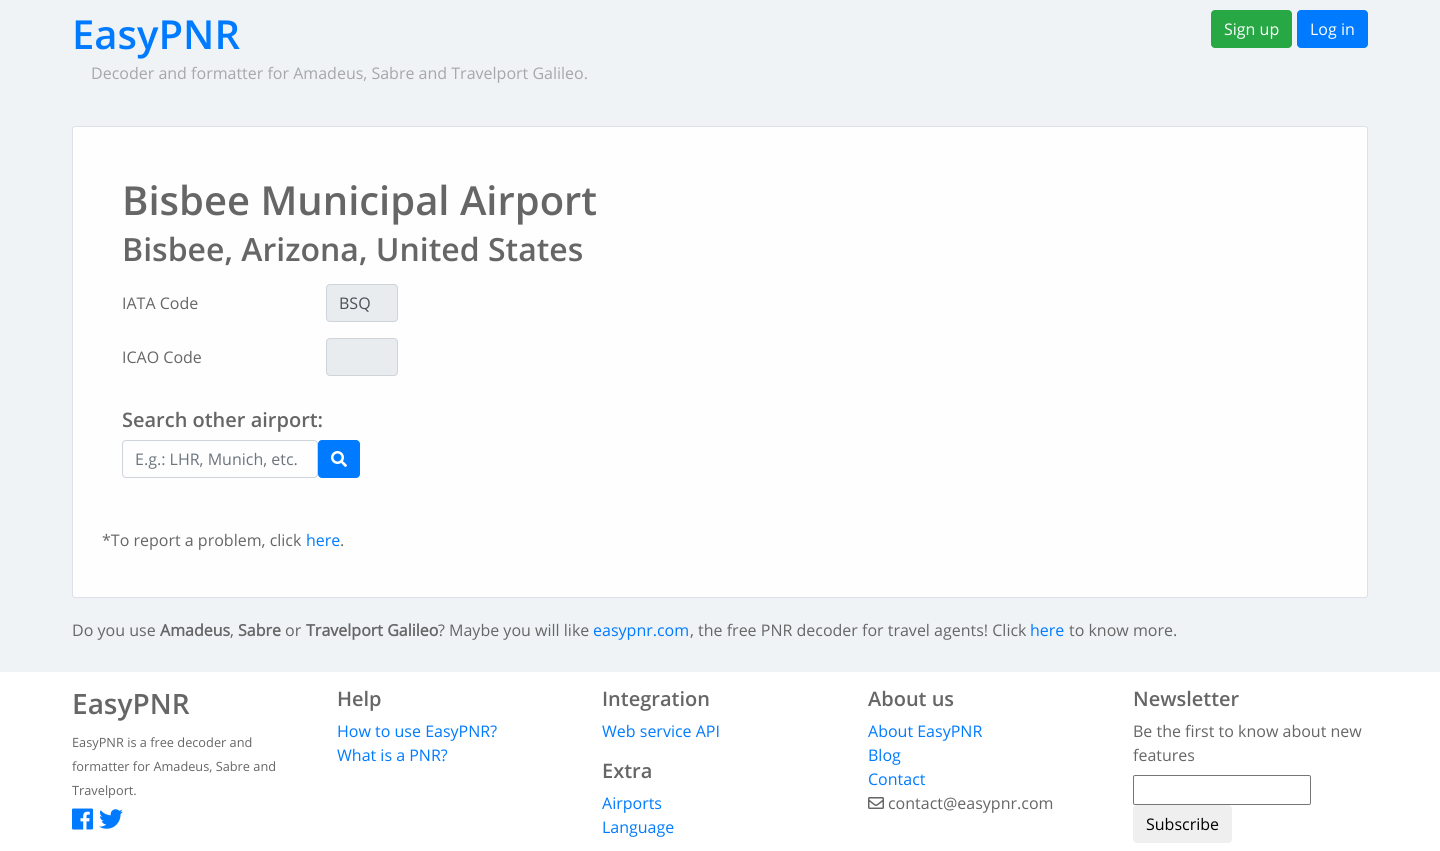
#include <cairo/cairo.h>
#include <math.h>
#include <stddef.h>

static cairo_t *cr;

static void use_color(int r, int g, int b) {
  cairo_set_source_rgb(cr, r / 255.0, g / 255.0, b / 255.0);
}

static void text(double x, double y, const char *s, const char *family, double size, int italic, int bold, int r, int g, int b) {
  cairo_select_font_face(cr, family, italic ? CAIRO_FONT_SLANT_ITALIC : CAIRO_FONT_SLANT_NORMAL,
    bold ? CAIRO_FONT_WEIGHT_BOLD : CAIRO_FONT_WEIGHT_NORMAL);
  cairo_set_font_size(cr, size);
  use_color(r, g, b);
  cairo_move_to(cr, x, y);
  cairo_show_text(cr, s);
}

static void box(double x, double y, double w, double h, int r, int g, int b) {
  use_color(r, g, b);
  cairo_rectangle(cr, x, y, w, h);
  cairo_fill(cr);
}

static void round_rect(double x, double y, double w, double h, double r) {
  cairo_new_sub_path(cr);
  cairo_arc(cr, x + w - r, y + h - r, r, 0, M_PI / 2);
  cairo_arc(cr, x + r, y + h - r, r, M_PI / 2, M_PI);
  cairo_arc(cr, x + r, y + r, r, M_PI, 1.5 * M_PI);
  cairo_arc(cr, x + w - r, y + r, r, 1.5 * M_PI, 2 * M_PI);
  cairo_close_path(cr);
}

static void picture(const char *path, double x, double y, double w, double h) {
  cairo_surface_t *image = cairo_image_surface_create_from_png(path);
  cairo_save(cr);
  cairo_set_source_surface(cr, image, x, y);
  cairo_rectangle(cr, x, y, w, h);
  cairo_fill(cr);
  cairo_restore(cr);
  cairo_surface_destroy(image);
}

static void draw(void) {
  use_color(239, 243, 246);
  cairo_paint(cr);
  use_color(40, 167, 69);
  round_rect(1211.5, 10.5, 80, 37, 3.5);
  cairo_fill_preserve(cr);
  cairo_set_line_width(cr, 1);
  cairo_stroke(cr);
  use_color(0, 123, 255);
  round_rect(1297.5, 10.5, 70, 37, 3.5);
  cairo_fill_preserve(cr);
  cairo_stroke(cr);
  use_color(254, 254, 254);
  round_rect(72.5, 126.5, 1295, 471, 2.5);
  cairo_fill_preserve(cr);
  use_color(221, 224, 232);
  cairo_stroke(cr);
  use_color(233, 236, 239);
  round_rect(326.5, 284.5, 71, 37, 3.5);
  cairo_fill_preserve(cr);
  use_color(206, 212, 218);
  cairo_stroke(cr);
  use_color(233, 236, 239);
  round_rect(326.5, 338.5, 71, 37, 3.5);
  cairo_fill_preserve(cr);
  use_color(206, 212, 218);
  cairo_stroke(cr);
  round_rect(122.5, 440.5, 195, 37, 3.5);
  cairo_stroke(cr);
  use_color(0, 123, 255);
  round_rect(318.5, 440.5, 41, 37, 3.5);
  cairo_fill_preserve(cr);
  cairo_stroke(cr);
  picture("img_01.png", 331, 451, 16, 16);
  box(0, 672, 1440, 179, 255, 255, 255);
  picture("img_02.png", 72, 808, 21, 22);
  picture("img_03.png", 99, 809, 24, 20);
  picture("img_04.png", 868, 797, 16, 12);
  round_rect(1133.5, 775.5, 177, 29, 1.5);
  use_color(118, 118, 118);
  cairo_stroke(cr);
  use_color(239, 239, 239);
  round_rect(1133, 805, 99, 38, 4);
  cairo_fill(cr);
  text(72, 49, "EasyPNR", "Open Sans SemiBold", 40, 0, 0, 0, 123, 255);
  text(1224, 35, "Sign up", "Open Sans", 16, 0, 0, 255, 255, 255);
  text(1310, 35, "Log in", "Open Sans", 16, 0, 0, 255, 255, 255);
  text(91, 79, "Decoder and formatter for Amadeus, Sabre and Travelport Galileo.", "Open Sans", 16, 0, 0, 167, 167, 167);
  text(122, 215, "Bisbee Municipal Airport", "Open Sans SemiBold", 40, 0, 0, 102, 102, 102);
  text(122, 261, "Bisbee, Arizona, United States", "Open Sans SemiBold", 32, 0, 0, 102, 102, 102);
  text(122, 309, "IATA Code", "Open Sans", 16, 0, 0, 102, 102, 102);
  text(339, 309, "BSQ", "Open Sans", 16, 0, 0, 73, 80, 87);
  text(122, 363, "ICAO Code", "Open Sans", 16, 0, 0, 102, 102, 102);
  text(122, 427, "Search other airport:", "Open Sans SemiBold", 20, 0, 0, 102, 102, 102);
  text(135, 465, "E.g.: LHR, Munich, etc.", "Open Sans", 16, 0, 0, 108, 117, 125);
  text(102, 546, "*To report a problem, click", "Open Sans", 16, 0, 0, 102, 102, 102);
  text(306, 546, "here", "Open Sans", 16, 0, 0, 0, 123, 255);
  text(340, 546, ".", "Open Sans", 16, 0, 0, 102, 102, 102);
  text(72, 636, "Do you use", "Open Sans", 16, 0, 0, 102, 102, 102);
  text(160, 636, "Amadeus", "Open Sans", 16, 0, 1, 102, 102, 102);
  text(230, 636, ",", "Open Sans", 16, 0, 0, 102, 102, 102);
  text(238, 636, "Sabre", "Open Sans", 16, 0, 1, 102, 102, 102);
  text(285, 636, "or", "Open Sans", 16, 0, 0, 102, 102, 102);
  text(306, 636, "Travelport Galileo", "Open Sans", 16, 0, 1, 102, 102, 102);
  text(438, 636, "? Maybe you will like", "Open Sans", 16, 0, 0, 102, 102, 102);
  text(593, 636, "easypnr.com", "Open Sans", 16, 0, 0, 0, 123, 255);
  text(690, 636, ", the free PNR decoder for travel agents! Click", "Open Sans", 16, 0, 0, 102, 102, 102);
  text(1030, 636, "here", "Open Sans", 16, 0, 0, 0, 123, 255);
  text(1069, 636, "to know more.", "Open Sans", 16, 0, 0, 102, 102, 102);
  text(72, 714, "EasyPNR", "Open Sans SemiBold", 28, 0, 0, 102, 102, 102);
  text(72, 747, "EasyPNR is a free decoder and", "Open Sans", 12.75, 0, 0, 102, 102, 102);
  text(72, 771, "formatter for Amadeus, Sabre and", "Open Sans", 12.75, 0, 0, 102, 102, 102);
  text(72, 795, "Travelport.", "Open Sans", 12.75, 0, 0, 102, 102, 102);
  text(337, 706, "Help", "Open Sans SemiBold", 20, 0, 0, 102, 102, 102);
  text(337, 737, "How to use EasyPNR?", "Open Sans", 16, 0, 0, 0, 123, 255);
  text(337, 761, "What is a PNR?", "Open Sans", 16, 0, 0, 0, 123, 255);
  text(602, 706, "Integration", "Open Sans SemiBold", 20, 0, 0, 102, 102, 102);
  text(602, 737, "Web service API", "Open Sans", 16, 0, 0, 0, 123, 255);
  text(602, 778, "Extra", "Open Sans SemiBold", 20, 0, 0, 102, 102, 102);
  text(602, 809, "Airports", "Open Sans", 16, 0, 0, 0, 123, 255);
  text(602, 833, "Language", "Open Sans", 16, 0, 0, 0, 123, 255);
  text(868, 706, "About us", "Open Sans SemiBold", 20, 0, 0, 102, 102, 102);
  text(868, 737, "About EasyPNR", "Open Sans", 16, 0, 0, 0, 123, 255);
  text(868, 761, "Blog", "Open Sans", 16, 0, 0, 0, 123, 255);
  text(868, 785, "Contact", "Open Sans", 16, 0, 0, 0, 123, 255);
  text(888, 809, "contact@easypnr.com", "Open Sans", 16, 0, 0, 102, 102, 102);
  text(1133, 706, "Newsletter", "Open Sans SemiBold", 20, 0, 0, 102, 102, 102);
  text(1133, 737, "Be the first to know about new", "Open Sans", 16, 0, 0, 102, 102, 102);
  text(1133, 761, "features", "Open Sans", 16, 0, 0, 102, 102, 102);
  text(1146, 830, "Subscribe", "Open Sans", 16, 0, 0, 0, 0, 0);
}

int main(void) {
  cairo_surface_t *surface = cairo_image_surface_create(CAIRO_FORMAT_RGB24, 1440, 851);
  cr = cairo_create(surface);
  cairo_font_options_t *options = cairo_font_options_create();
  cairo_font_options_set_hint_metrics(options, CAIRO_HINT_METRICS_OFF);
  cairo_font_options_set_hint_style(options, CAIRO_HINT_STYLE_NONE);
  cairo_set_font_options(cr, options);
  cairo_set_miter_limit(cr, 4);
  draw();
  cairo_surface_write_to_png(surface, "out.png");
  cairo_font_options_destroy(options);
  cairo_destroy(cr);
  cairo_surface_destroy(surface);
  return 0;
}
